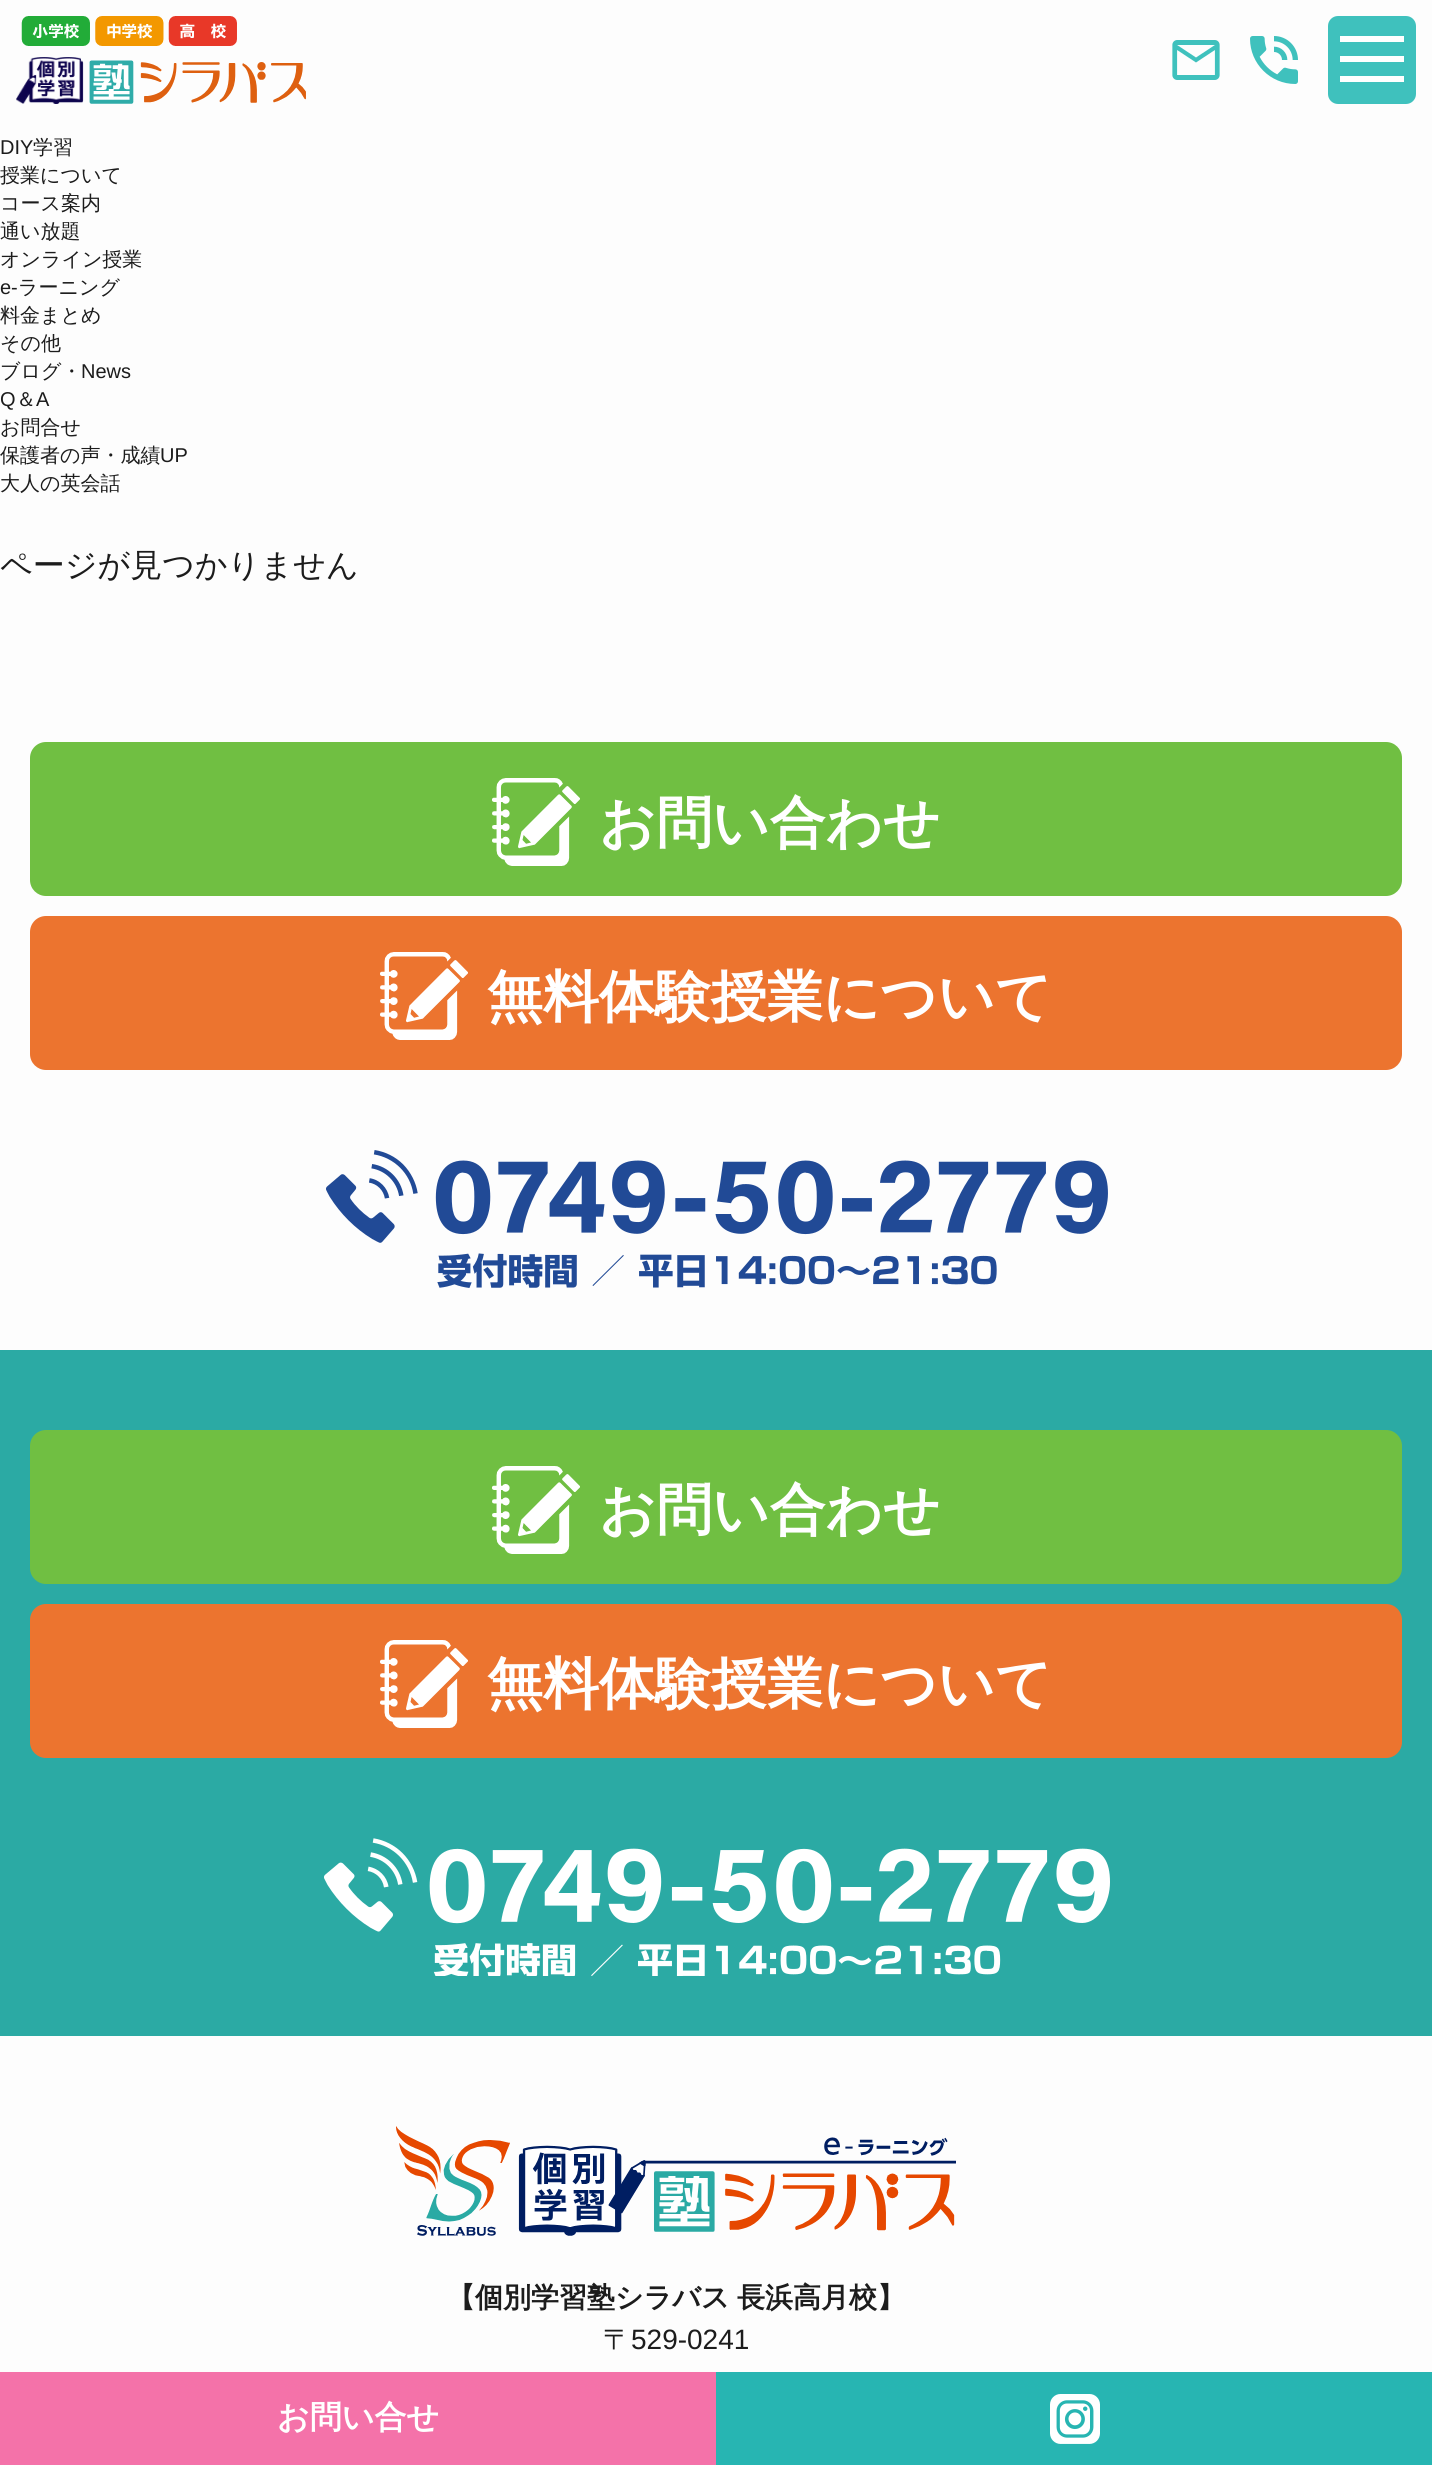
#include <cairo/cairo.h>
#include <math.h>
#include <stddef.h>

static cairo_t *cr;

static void use_color(int r, int g, int b) {
  cairo_set_source_rgb(cr, r / 255.0, g / 255.0, b / 255.0);
}

static void text(double x, double y, const char *s, const char *family, double size, int italic, int bold, int r, int g, int b) {
  cairo_select_font_face(cr, family, italic ? CAIRO_FONT_SLANT_ITALIC : CAIRO_FONT_SLANT_NORMAL,
    bold ? CAIRO_FONT_WEIGHT_BOLD : CAIRO_FONT_WEIGHT_NORMAL);
  cairo_set_font_size(cr, size);
  use_color(r, g, b);
  cairo_move_to(cr, x, y);
  cairo_show_text(cr, s);
}

static void spaced_text(double x, double y, const char *s, double letter, double word) {
  cairo_move_to(cr, x, y);
  while (*s) {
    char ch[5] = {0};
    int n = 0;
    do ch[n++] = *s++; while ((*s & 0xC0) == 0x80);
    cairo_show_text(cr, ch);
    cairo_rel_move_to(cr, letter + word * (*ch == ' '), 0);
  }
}

static void box(double x, double y, double w, double h, int r, int g, int b) {
  use_color(r, g, b);
  cairo_rectangle(cr, x, y, w, h);
  cairo_fill(cr);
}

static void round_rect(double x, double y, double w, double h, double r) {
  cairo_new_sub_path(cr);
  cairo_arc(cr, x + w - r, y + h - r, r, 0, M_PI / 2);
  cairo_arc(cr, x + r, y + h - r, r, M_PI / 2, M_PI);
  cairo_arc(cr, x + r, y + r, r, M_PI, 1.5 * M_PI);
  cairo_arc(cr, x + w - r, y + r, r, 1.5 * M_PI, 2 * M_PI);
  cairo_close_path(cr);
}

static void picture(const char *path, double x, double y, double w, double h) {
  cairo_surface_t *image = cairo_image_surface_create_from_png(path);
  cairo_save(cr);
  cairo_set_source_surface(cr, image, x, y);
  cairo_rectangle(cr, x, y, w, h);
  cairo_fill(cr);
  cairo_restore(cr);
  cairo_surface_destroy(image);
}

static void draw(void) {
  use_color(253, 253, 253);
  cairo_paint(cr);
  picture("img_01.png", 16, 16, 290, 88);
  picture("img_02.png", 1172, 40, 48, 40);
  picture("img_03.png", 1250, 36, 48, 48);
  use_color(63, 193, 189);
  round_rect(1328, 16, 88, 88, 10);
  cairo_fill(cr);
  box(1340, 36, 64, 6, 255, 255, 255);
  box(1340, 56, 64, 6, 255, 255, 255);
  box(1340, 76, 64, 6, 255, 255, 255);
  use_color(112, 191, 66);
  round_rect(30, 742, 1372, 154, 16);
  cairo_fill(cr);
  picture("img_04.png", 492, 778, 88, 88);
  use_color(236, 116, 47);
  round_rect(30, 916, 1372, 154, 16);
  cairo_fill(cr);
  picture("img_05.png", 380, 952, 88, 88);
  picture("img_06.png", 326, 1150, 782, 138);
  box(0, 1350, 1432, 686, 43, 170, 164);
  use_color(112, 191, 66);
  round_rect(30, 1430, 1372, 154, 16);
  cairo_fill(cr);
  picture("img_07.png", 492, 1466, 88, 88);
  use_color(236, 116, 47);
  round_rect(30, 1604, 1372, 154, 16);
  cairo_fill(cr);
  picture("img_08.png", 380, 1640, 88, 88);
  picture("img_09.png", 324, 1838, 786, 138);
  picture("img_10.png", 396, 2126, 560, 110);
  box(0, 2372, 716, 93, 244, 114, 169);
  box(716, 2372, 716, 93, 39, 181, 178);
  picture("img_11.png", 1050, 2394, 50, 50);
  text(0, 154, "DIY", "Liberation Sans", 20, 0, 0, 28, 28, 28);
  text(33, 154, "学習", "WenQuanYi Zen Hei Medium", 20, 0, 0, 28, 28, 28);
  text(0, 182, "授業について", "WenQuanYi Zen Hei Medium", 20, 0, 0, 28, 28, 28);
  text(0, 210, "コース案内", "WenQuanYi Zen Hei Medium", 20, 0, 0, 28, 28, 28);
  text(0, 238, "通い放題", "WenQuanYi Zen Hei Medium", 20, 0, 0, 28, 28, 28);
  text(0, 266, "オンライン授業", "WenQuanYi Zen Hei Medium", 20, 0, 0, 28, 28, 28);
  text(0, 294, "e-", "Liberation Sans", 20, 0, 0, 28, 28, 28);
  text(18, 294, "ラーニング", "WenQuanYi Zen Hei Medium", 20, 0, 0, 28, 28, 28);
  text(0, 322, "料金まとめ", "WenQuanYi Zen Hei Medium", 20, 0, 0, 28, 28, 28);
  text(0, 350, "その他", "WenQuanYi Zen Hei Medium", 20, 0, 0, 28, 28, 28);
  text(0, 378, "ブログ・", "WenQuanYi Zen Hei Medium", 20, 0, 0, 28, 28, 28);
  text(81, 378, "News", "Liberation Sans", 20, 0, 0, 28, 28, 28);
  text(0, 406, "Q", "Liberation Sans", 20, 0, 0, 28, 28, 28);
  text(16, 406, "＆", "WenQuanYi Zen Hei Medium", 20, 0, 0, 28, 28, 28);
  text(36, 406, "A", "Liberation Sans", 20, 0, 0, 28, 28, 28);
  text(0, 434, "お問合せ", "WenQuanYi Zen Hei Medium", 20, 0, 0, 28, 28, 28);
  text(0, 462, "保護者の声・成績", "WenQuanYi Zen Hei Medium", 20, 0, 0, 28, 28, 28);
  text(160, 462, "UP", "Liberation Sans", 20, 0, 0, 28, 28, 28);
  text(0, 490, "大人の英会話", "WenQuanYi Zen Hei Medium", 20, 0, 0, 28, 28, 28);
  text(0, 576, "ページが見つかりません", "WenQuanYi Zen Hei Medium", 32, 0, 0, 28, 28, 28);
  text(599, 842, "お問い合わせ", "WenQuanYi Zen Hei", 56, 0, 1, 255, 255, 255);
  text(487, 1016, "無料体験授業について", "WenQuanYi Zen Hei", 56, 0, 1, 255, 255, 255);
  text(599, 1529, "お問い合わせ", "WenQuanYi Zen Hei", 56, 0, 1, 255, 255, 255);
  text(487, 1703, "無料体験授業について", "WenQuanYi Zen Hei", 56, 0, 1, 255, 255, 255);
  cairo_set_font_size(cr, 28);
  use_color(28, 28, 28);
  spaced_text(447, 2307, "【個別学習塾シラバス 長浜高月校】", 0, -1);
  text(603, 2349, "〒", "WenQuanYi Zen Hei Medium", 28, 0, 0, 28, 28, 28);
  text(631, 2349, "529-0241", "Liberation Sans", 28, 0, 0, 28, 28, 28);
  text(277, 2428, "お問い合せ", "WenQuanYi Zen Hei", 32, 0, 1, 255, 255, 255);
}

int main(void) {
  cairo_surface_t *surface = cairo_image_surface_create(CAIRO_FORMAT_RGB24, 1432, 2465);
  cr = cairo_create(surface);
  cairo_font_options_t *options = cairo_font_options_create();
  cairo_font_options_set_hint_metrics(options, CAIRO_HINT_METRICS_OFF);
  cairo_font_options_set_hint_style(options, CAIRO_HINT_STYLE_NONE);
  cairo_set_font_options(cr, options);
  cairo_set_miter_limit(cr, 4);
  draw();
  cairo_surface_write_to_png(surface, "out.png");
  cairo_font_options_destroy(options);
  cairo_destroy(cr);
  cairo_surface_destroy(surface);
  return 0;
}
